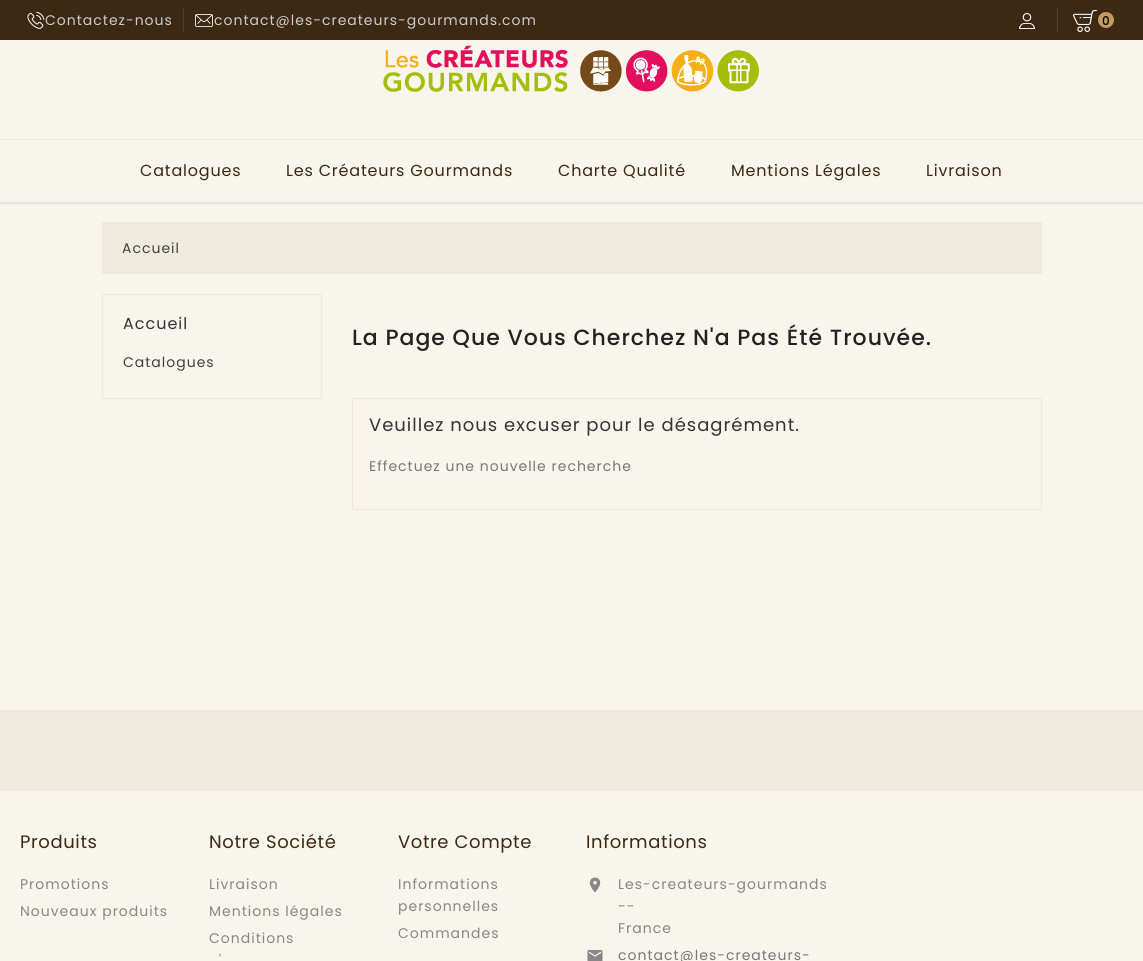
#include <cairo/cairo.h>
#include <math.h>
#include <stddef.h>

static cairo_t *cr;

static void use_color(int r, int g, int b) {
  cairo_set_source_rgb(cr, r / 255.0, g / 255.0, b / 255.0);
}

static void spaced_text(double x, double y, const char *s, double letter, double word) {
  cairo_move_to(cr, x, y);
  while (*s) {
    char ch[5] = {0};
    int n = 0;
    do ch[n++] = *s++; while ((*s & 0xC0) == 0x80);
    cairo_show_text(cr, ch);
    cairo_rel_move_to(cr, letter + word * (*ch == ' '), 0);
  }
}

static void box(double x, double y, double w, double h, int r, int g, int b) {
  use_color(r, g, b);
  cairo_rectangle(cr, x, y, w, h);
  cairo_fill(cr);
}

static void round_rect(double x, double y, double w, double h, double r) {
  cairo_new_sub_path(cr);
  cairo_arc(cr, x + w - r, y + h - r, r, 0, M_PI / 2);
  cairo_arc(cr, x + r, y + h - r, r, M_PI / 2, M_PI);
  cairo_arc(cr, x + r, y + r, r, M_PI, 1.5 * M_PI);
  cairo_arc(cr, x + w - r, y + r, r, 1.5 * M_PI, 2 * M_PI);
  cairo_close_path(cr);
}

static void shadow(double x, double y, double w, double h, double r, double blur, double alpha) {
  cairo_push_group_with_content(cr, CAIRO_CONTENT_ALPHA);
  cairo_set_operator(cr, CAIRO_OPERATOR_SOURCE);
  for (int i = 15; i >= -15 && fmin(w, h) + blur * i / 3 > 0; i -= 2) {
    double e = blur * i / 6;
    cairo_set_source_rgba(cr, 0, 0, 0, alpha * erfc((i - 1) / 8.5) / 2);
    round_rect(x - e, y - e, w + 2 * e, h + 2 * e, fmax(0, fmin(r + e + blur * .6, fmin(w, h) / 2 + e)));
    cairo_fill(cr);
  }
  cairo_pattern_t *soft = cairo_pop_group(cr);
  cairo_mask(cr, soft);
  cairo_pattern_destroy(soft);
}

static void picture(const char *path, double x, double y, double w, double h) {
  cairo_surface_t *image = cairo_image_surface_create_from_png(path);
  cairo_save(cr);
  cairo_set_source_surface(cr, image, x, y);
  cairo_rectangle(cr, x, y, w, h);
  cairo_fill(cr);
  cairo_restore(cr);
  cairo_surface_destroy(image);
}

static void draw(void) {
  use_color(248, 245, 237);
  cairo_paint(cr);
  box(0, 0, 1143, 40, 60, 40, 19);
  box(183, 9, 1, 22, 80, 62, 43);
  picture("img_01.png", 27, 11, 18, 18);
  picture("img_02.png", 195, 14, 18, 13);
  picture("img_03.png", 1019, 13, 16, 16);
  box(1057, 8, 1, 25, 80, 62, 43);
  picture("img_04.png", 1073, 10, 24, 22);
  use_color(194, 155, 94);
  cairo_arc(cr, 1106, 20, 8, 0, 2 * M_PI);
  cairo_fill(cr);
  picture("img_05.png", 383, 45, 376, 47);
  cairo_save(cr);
  cairo_rectangle(cr, 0, 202, 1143, 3);
  cairo_clip(cr);
  use_color(50, 50, 50);
  shadow(0, 141, 1143, 63, 0, 1, 0.1);
  cairo_restore(cr);
  box(0, 139, 1143, 1, 241, 232, 219);
  box(102, 222, 940, 52, 240, 235, 223);
  cairo_rectangle(cr, 102.5, 294.5, 219, 104);
  use_color(241, 232, 219);
  cairo_set_line_width(cr, 1);
  cairo_stroke(cr);
  cairo_rectangle(cr, 352.5, 398.5, 689, 111);
  cairo_stroke(cr);
  box(0, 710, 1143, 81, 240, 235, 223);
  picture("img_06.png", 589, 877, 12, 16);
  picture("img_07.png", 587, 950, 16, 11);
  cairo_select_font_face(cr, "Poppins", CAIRO_FONT_SLANT_NORMAL, CAIRO_FONT_WEIGHT_NORMAL);
  cairo_set_font_size(cr, 14);
  use_color(204, 204, 204);
  spaced_text(45, 25, "Contactez-nous", 1, 0);
  spaced_text(214, 25, "contact@les-createurs-gourmands.com", 1, 0);
  cairo_select_font_face(cr, "Poppins Medium", CAIRO_FONT_SLANT_NORMAL, CAIRO_FONT_WEIGHT_NORMAL);
  cairo_set_font_size(cr, 12);
  use_color(0, 0, 0);
  spaced_text(1102, 25, "0", 1, 0);
  cairo_select_font_face(cr, "Poppins", CAIRO_FONT_SLANT_NORMAL, CAIRO_FONT_WEIGHT_NORMAL);
  cairo_set_font_size(cr, 16);
  use_color(60, 40, 19);
  spaced_text(140, 176, "Catalogues", 0.8, 0);
  spaced_text(286, 176, "Les Créateurs Gourmands", 0.8, 0);
  spaced_text(558, 176, "Charte Qualité", 0.8, 0);
  spaced_text(731, 176, "Mentions Légales", 0.8, 0);
  spaced_text(926, 176, "Livraison", 0.8, 0);
  cairo_set_font_size(cr, 14);
  use_color(65, 65, 65);
  spaced_text(122, 253, "Accueil", 1, 0);
  cairo_set_font_size(cr, 16);
  use_color(51, 51, 51);
  spaced_text(123, 329, "Accueil", 1, 0);
  cairo_set_font_size(cr, 14);
  use_color(65, 65, 65);
  spaced_text(123, 367, "Catalogues", 1, 0);
  cairo_select_font_face(cr, "Poppins Medium", CAIRO_FONT_SLANT_NORMAL, CAIRO_FONT_WEIGHT_NORMAL);
  cairo_set_font_size(cr, 22);
  use_color(34, 34, 34);
  spaced_text(352, 345, "La Page Que Vous Cherchez N'a Pas Été Trouvée.", 1, 0);
  cairo_select_font_face(cr, "Poppins", CAIRO_FONT_SLANT_NORMAL, CAIRO_FONT_WEIGHT_NORMAL);
  cairo_set_font_size(cr, 18);
  use_color(51, 51, 51);
  spaced_text(369, 431, "Veuillez nous excuser pour le désagrément.", 1, 0);
  cairo_set_font_size(cr, 14);
  use_color(119, 119, 119);
  spaced_text(369, 471, "Effectuez une nouvelle recherche", 1, 0);
  cairo_set_font_size(cr, 18);
  use_color(60, 40, 19);
  spaced_text(20, 848, "Produits", 0.6, 0);
  cairo_set_font_size(cr, 14);
  use_color(135, 135, 135);
  spaced_text(20, 889, "Promotions", 1, 0);
  spaced_text(20, 916, "Nouveaux produits", 1, 0);
  cairo_set_font_size(cr, 18);
  use_color(60, 40, 19);
  spaced_text(209, 848, "Notre Société", 0.6, 0);
  cairo_set_font_size(cr, 14);
  use_color(135, 135, 135);
  spaced_text(209, 889, "Livraison", 1, 0);
  spaced_text(209, 916, "Mentions légales", 1, 0);
  spaced_text(209, 943, "Conditions", 1, 0);
  spaced_text(219, 965, "'", 1, 0);
  cairo_set_font_size(cr, 18);
  use_color(60, 40, 19);
  spaced_text(398, 848, "Votre Compte", 0.6, 0);
  cairo_set_font_size(cr, 14);
  use_color(135, 135, 135);
  spaced_text(398, 889, "Informations", 1, 0);
  spaced_text(398, 911, "personnelles", 1, 0);
  spaced_text(398, 938, "Commandes", 1, 0);
  cairo_set_font_size(cr, 18);
  use_color(60, 40, 19);
  spaced_text(586, 848, "Informations", 0.6, 0);
  cairo_set_font_size(cr, 14);
  use_color(135, 135, 135);
  spaced_text(618, 889, "Les-createurs-gourmands", 1, 0);
  spaced_text(618, 911, "--", 1, 0);
  spaced_text(618, 933, "France", 1, 0);
  use_color(119, 119, 119);
  spaced_text(618, 960, "contact@les-createurs-", 1, 0);
}

int main(void) {
  cairo_surface_t *surface = cairo_image_surface_create(CAIRO_FORMAT_RGB24, 1143, 961);
  cr = cairo_create(surface);
  cairo_font_options_t *options = cairo_font_options_create();
  cairo_font_options_set_hint_metrics(options, CAIRO_HINT_METRICS_OFF);
  cairo_font_options_set_hint_style(options, CAIRO_HINT_STYLE_NONE);
  cairo_set_font_options(cr, options);
  cairo_set_miter_limit(cr, 4);
  draw();
  cairo_surface_write_to_png(surface, "out.png");
  cairo_font_options_destroy(options);
  cairo_destroy(cr);
  cairo_surface_destroy(surface);
  return 0;
}
